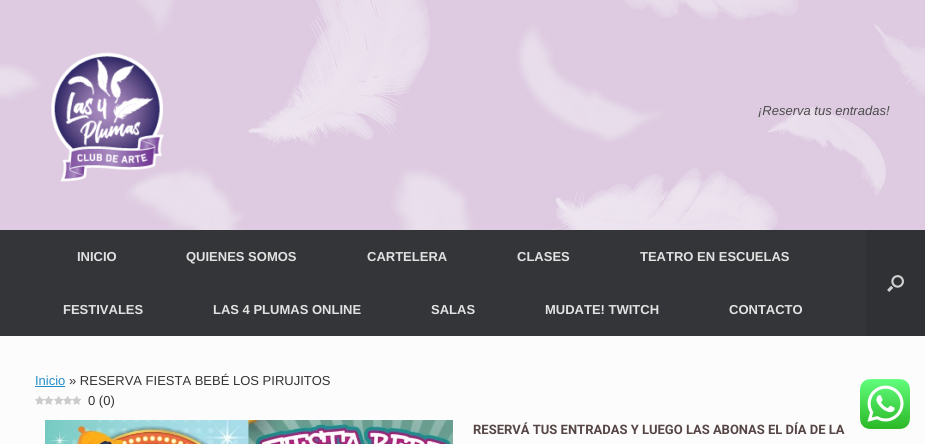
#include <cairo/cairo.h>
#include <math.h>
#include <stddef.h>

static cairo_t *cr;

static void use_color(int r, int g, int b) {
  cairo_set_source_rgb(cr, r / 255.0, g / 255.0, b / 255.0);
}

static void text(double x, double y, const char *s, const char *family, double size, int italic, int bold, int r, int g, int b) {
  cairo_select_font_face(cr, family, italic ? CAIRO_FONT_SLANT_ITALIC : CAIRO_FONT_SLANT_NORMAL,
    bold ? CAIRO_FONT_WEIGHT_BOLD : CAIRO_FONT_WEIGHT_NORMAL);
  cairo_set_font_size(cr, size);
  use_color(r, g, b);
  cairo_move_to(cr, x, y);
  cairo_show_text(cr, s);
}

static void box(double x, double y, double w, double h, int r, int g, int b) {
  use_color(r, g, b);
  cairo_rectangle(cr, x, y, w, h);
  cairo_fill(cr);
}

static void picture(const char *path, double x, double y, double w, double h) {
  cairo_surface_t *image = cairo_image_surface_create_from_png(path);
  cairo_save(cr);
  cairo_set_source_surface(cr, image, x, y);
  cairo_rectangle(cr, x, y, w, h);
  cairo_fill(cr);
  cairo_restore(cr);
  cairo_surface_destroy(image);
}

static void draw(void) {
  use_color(255, 255, 255);
  cairo_paint(cr);
  picture("img_01.png", 0, 0, 925, 230);
  picture("img_02.png", 51, 52, 113, 130);
  box(0, 230, 866, 106, 52, 53, 56);
  box(866, 230, 59, 106, 48, 49, 52);
  picture("img_03.png", 887, 275, 17, 17);
  box(0, 336, 925, 108, 252, 252, 252);
  box(35, 386, 30, 1, 36, 140, 200);
  picture("img_04.png", 35, 396, 10, 9);
  picture("img_05.png", 44, 396, 10, 9);
  picture("img_04.png", 54, 396, 10, 9);
  picture("img_05.png", 63, 396, 10, 9);
  picture("img_05.png", 72, 396, 10, 9);
  picture("img_06.png", 45, 420, 408, 24);
  picture("img_07.png", 860, 379, 50, 50);
  text(758, 115, "¡Reserva tus entradas!", "Liberation Sans", 13, 1, 0, 75, 75, 75);
  text(77, 261, "INICIO", "Liberation Sans", 13, 0, 1, 226, 226, 226);
  text(186, 261, "QUIENES SOMOS", "Liberation Sans", 13, 0, 1, 226, 226, 226);
  text(367, 261, "CARTELERA", "Liberation Sans", 13, 0, 1, 226, 226, 226);
  text(517, 261, "CLASES", "Liberation Sans", 13, 0, 1, 226, 226, 226);
  text(640, 261, "TEATRO EN ESCUELAS", "Liberation Sans", 13, 0, 1, 226, 226, 226);
  text(63, 314, "FESTIVALES", "Liberation Sans", 13, 0, 1, 226, 226, 226);
  text(213, 314, "LAS 4 PLUMAS ONLINE", "Liberation Sans", 13, 0, 1, 226, 226, 226);
  text(431, 314, "SALAS", "Liberation Sans", 13, 0, 1, 226, 226, 226);
  text(545, 314, "MUDATE! TWITCH", "Liberation Sans", 13, 0, 1, 226, 226, 226);
  text(729, 314, "CONTACTO", "Liberation Sans", 13, 0, 1, 226, 226, 226);
  text(35, 385, "Inicio", "Liberation Sans", 13, 0, 0, 36, 140, 200);
  text(69, 385, "» RESERVA FIESTA BEBÉ LOS PIRUJITOS", "Liberation Sans", 13, 0, 0, 51, 51, 51);
  text(88, 405, "0 (0)", "Liberation Sans", 13, 0, 0, 51, 51, 51);
  text(473, 434, "RESERVÁ TUS ENTRADAS Y LUEGO LAS ABONAS EL DÍA DE LA", "Roboto", 13, 0, 1, 86, 69, 69);
}

int main(void) {
  cairo_surface_t *surface = cairo_image_surface_create(CAIRO_FORMAT_RGB24, 925, 444);
  cr = cairo_create(surface);
  cairo_font_options_t *options = cairo_font_options_create();
  cairo_font_options_set_hint_metrics(options, CAIRO_HINT_METRICS_OFF);
  cairo_font_options_set_hint_style(options, CAIRO_HINT_STYLE_NONE);
  cairo_set_font_options(cr, options);
  cairo_set_miter_limit(cr, 4);
  draw();
  cairo_surface_write_to_png(surface, "out.png");
  cairo_font_options_destroy(options);
  cairo_destroy(cr);
  cairo_surface_destroy(surface);
  return 0;
}
